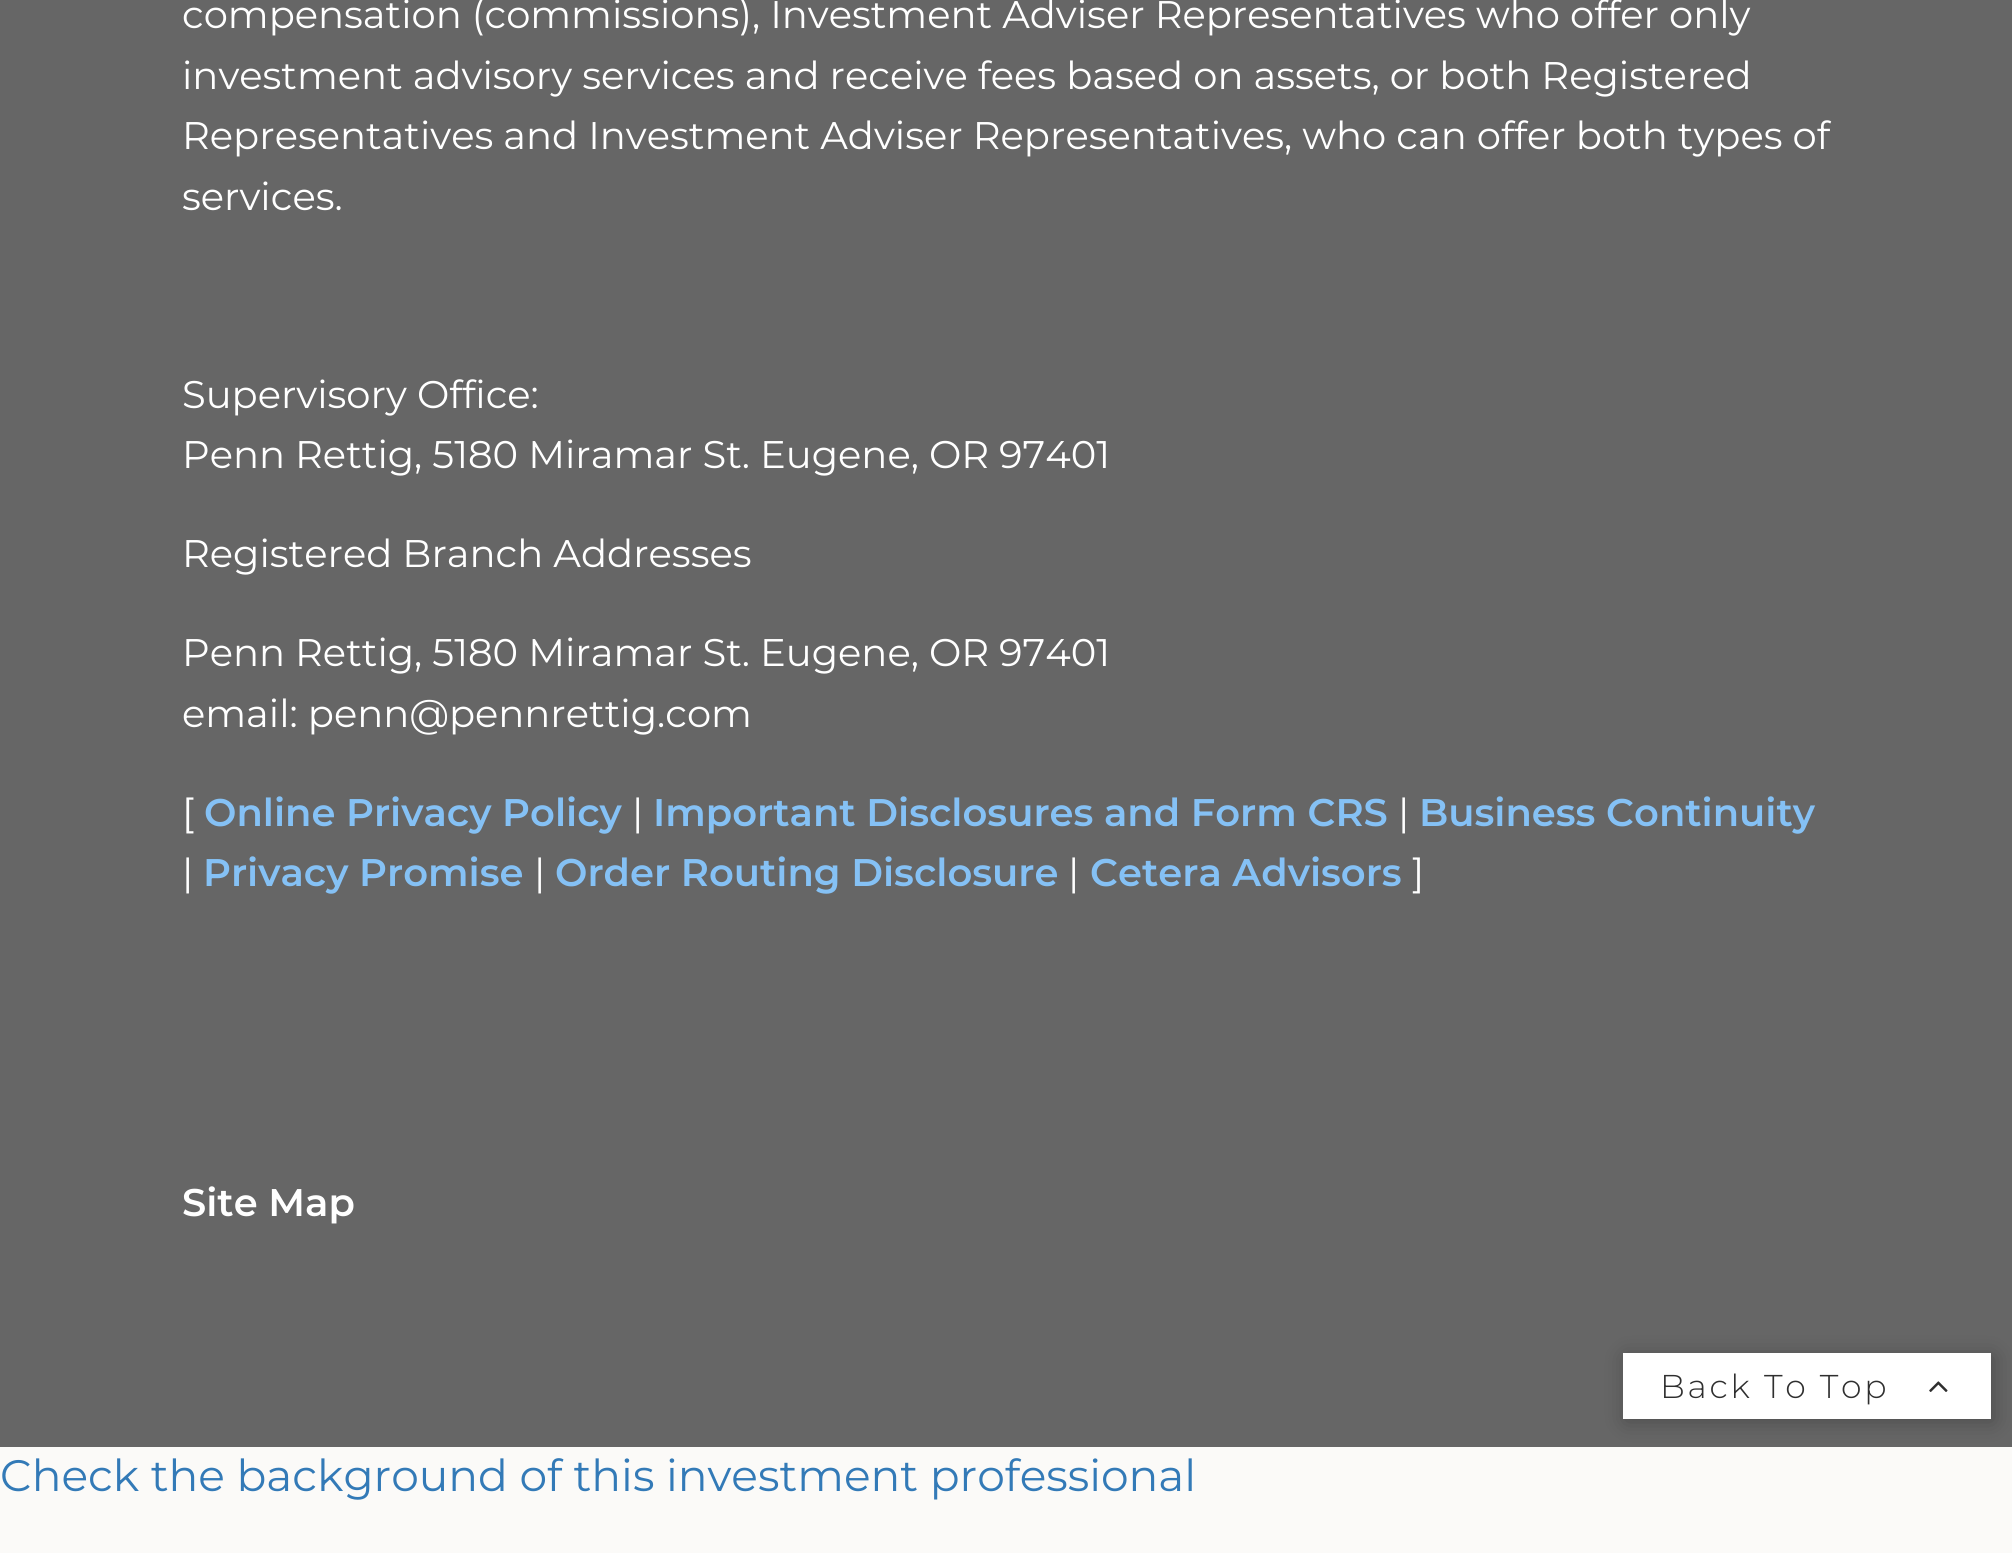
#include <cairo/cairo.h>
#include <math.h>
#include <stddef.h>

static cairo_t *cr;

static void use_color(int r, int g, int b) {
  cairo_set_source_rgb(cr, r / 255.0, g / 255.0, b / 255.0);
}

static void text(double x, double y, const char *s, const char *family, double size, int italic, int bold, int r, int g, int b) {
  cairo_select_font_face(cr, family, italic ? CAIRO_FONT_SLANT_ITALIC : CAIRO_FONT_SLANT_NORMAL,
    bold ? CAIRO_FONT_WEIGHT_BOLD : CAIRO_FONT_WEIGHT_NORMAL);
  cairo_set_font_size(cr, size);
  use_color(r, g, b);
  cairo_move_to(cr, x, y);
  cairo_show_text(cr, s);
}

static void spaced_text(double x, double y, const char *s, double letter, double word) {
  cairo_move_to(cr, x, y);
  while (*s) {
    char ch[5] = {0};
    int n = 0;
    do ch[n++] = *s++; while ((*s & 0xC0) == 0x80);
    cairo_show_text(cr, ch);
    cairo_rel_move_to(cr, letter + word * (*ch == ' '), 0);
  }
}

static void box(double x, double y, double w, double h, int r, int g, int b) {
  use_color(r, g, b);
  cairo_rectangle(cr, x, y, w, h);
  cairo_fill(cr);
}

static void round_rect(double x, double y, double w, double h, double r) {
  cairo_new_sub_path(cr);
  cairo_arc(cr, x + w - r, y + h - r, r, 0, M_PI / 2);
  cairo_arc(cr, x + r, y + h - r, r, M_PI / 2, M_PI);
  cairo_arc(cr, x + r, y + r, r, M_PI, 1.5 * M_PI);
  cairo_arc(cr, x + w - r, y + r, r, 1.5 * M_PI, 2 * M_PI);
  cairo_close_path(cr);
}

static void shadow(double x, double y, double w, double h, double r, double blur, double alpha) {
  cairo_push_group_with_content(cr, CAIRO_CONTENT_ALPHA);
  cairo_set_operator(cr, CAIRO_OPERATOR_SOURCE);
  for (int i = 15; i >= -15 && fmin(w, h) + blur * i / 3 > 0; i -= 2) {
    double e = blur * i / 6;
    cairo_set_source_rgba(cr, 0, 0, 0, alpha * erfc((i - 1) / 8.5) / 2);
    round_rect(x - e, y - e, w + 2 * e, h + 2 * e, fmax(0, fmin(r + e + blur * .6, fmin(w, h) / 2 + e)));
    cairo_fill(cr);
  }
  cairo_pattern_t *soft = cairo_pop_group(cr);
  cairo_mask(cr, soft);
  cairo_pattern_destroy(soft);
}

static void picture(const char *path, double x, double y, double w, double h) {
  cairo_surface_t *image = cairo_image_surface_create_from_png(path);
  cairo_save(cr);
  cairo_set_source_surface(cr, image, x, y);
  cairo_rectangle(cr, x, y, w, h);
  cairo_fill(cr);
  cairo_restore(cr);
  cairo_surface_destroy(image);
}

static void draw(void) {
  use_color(251, 250, 248);
  cairo_paint(cr);
  box(0, 0, 2012, 1447, 102, 102, 102);
  use_color(0, 0, 0);
  shadow(1625, 1356, 369, 66, 0, 11, 0.25);
  box(1623, 1353, 368, 66, 255, 255, 255);
  picture("img_01.png", 1929, 1381, 19, 11);
  text(182, 28, "compensation (commissions), Investment Adviser Representatives who offer only", "Montserrat", 38.5, 0, 0, 255, 255, 255);
  text(182, 89, "investment advisory services and receive fees based on assets, or both Registered", "Montserrat", 38.5, 0, 0, 255, 255, 255);
  text(182, 149, "Representatives and Investment Adviser Representatives, who can offer both types of", "Montserrat", 38.5, 0, 0, 255, 255, 255);
  text(182, 210, "services.", "Montserrat", 38.5, 0, 0, 255, 255, 255);
  text(182, 408, "Supervisory Office:", "Montserrat", 38.5, 0, 0, 255, 255, 255);
  text(182, 468, "Penn Rettig, 5180 Miramar St. Eugene, OR 97401", "Montserrat", 38.5, 0, 0, 255, 255, 255);
  text(182, 567, "Registered Branch Addresses", "Montserrat", 38.5, 0, 0, 255, 255, 255);
  text(182, 666, "Penn Rettig, 5180 Miramar St. Eugene, OR 97401", "Montserrat", 38.5, 0, 0, 255, 255, 255);
  text(182, 727, "email: penn@pennrettig.com", "Montserrat", 38.5, 0, 0, 255, 255, 255);
  text(182, 826, "[", "Montserrat", 38.5, 0, 0, 255, 255, 255);
  text(204, 826, "Online Privacy Policy", "Montserrat SemiBold", 38.5, 0, 0, 133, 193, 245);
  text(632, 826, "|", "Montserrat", 38.5, 0, 0, 255, 255, 255);
  text(653, 826, "Important Disclosures and Form CRS", "Montserrat SemiBold", 38.5, 0, 0, 133, 193, 245);
  text(1398, 826, "|", "Montserrat", 38.5, 0, 0, 255, 255, 255);
  text(1419, 826, "Business Continuity", "Montserrat SemiBold", 38.5, 0, 0, 133, 193, 245);
  text(182, 886, "|", "Montserrat", 38.5, 0, 0, 255, 255, 255);
  text(203, 886, "Privacy Promise", "Montserrat SemiBold", 38.5, 0, 0, 133, 193, 245);
  text(534, 886, "|", "Montserrat", 38.5, 0, 0, 255, 255, 255);
  text(555, 886, "Order Routing Disclosure", "Montserrat SemiBold", 38.5, 0, 0, 133, 193, 245);
  text(1068, 886, "|", "Montserrat", 38.5, 0, 0, 255, 255, 255);
  text(1090, 886, "Cetera Advisors", "Montserrat SemiBold", 38.5, 0, 0, 133, 193, 245);
  text(1412, 886, "]", "Montserrat", 38.5, 0, 0, 255, 255, 255);
  text(182, 1216, "Site Map", "Montserrat SemiBold", 38.5, 0, 0, 255, 255, 255);
  cairo_select_font_face(cr, "Montserrat Light", CAIRO_FONT_SLANT_NORMAL, CAIRO_FONT_WEIGHT_NORMAL);
  cairo_set_font_size(cr, 33);
  use_color(47, 47, 47);
  spaced_text(1660, 1398, "Back To Top", 2.75, 0);
  text(0, 1491, "Check the background of this investment professional", "Montserrat", 44, 0, 0, 51, 122, 183);
}

int main(void) {
  cairo_surface_t *surface = cairo_image_surface_create(CAIRO_FORMAT_RGB24, 2012, 1553);
  cr = cairo_create(surface);
  cairo_font_options_t *options = cairo_font_options_create();
  cairo_font_options_set_hint_metrics(options, CAIRO_HINT_METRICS_OFF);
  cairo_font_options_set_hint_style(options, CAIRO_HINT_STYLE_NONE);
  cairo_set_font_options(cr, options);
  cairo_set_miter_limit(cr, 4);
  draw();
  cairo_surface_write_to_png(surface, "out.png");
  cairo_font_options_destroy(options);
  cairo_destroy(cr);
  cairo_surface_destroy(surface);
  return 0;
}
